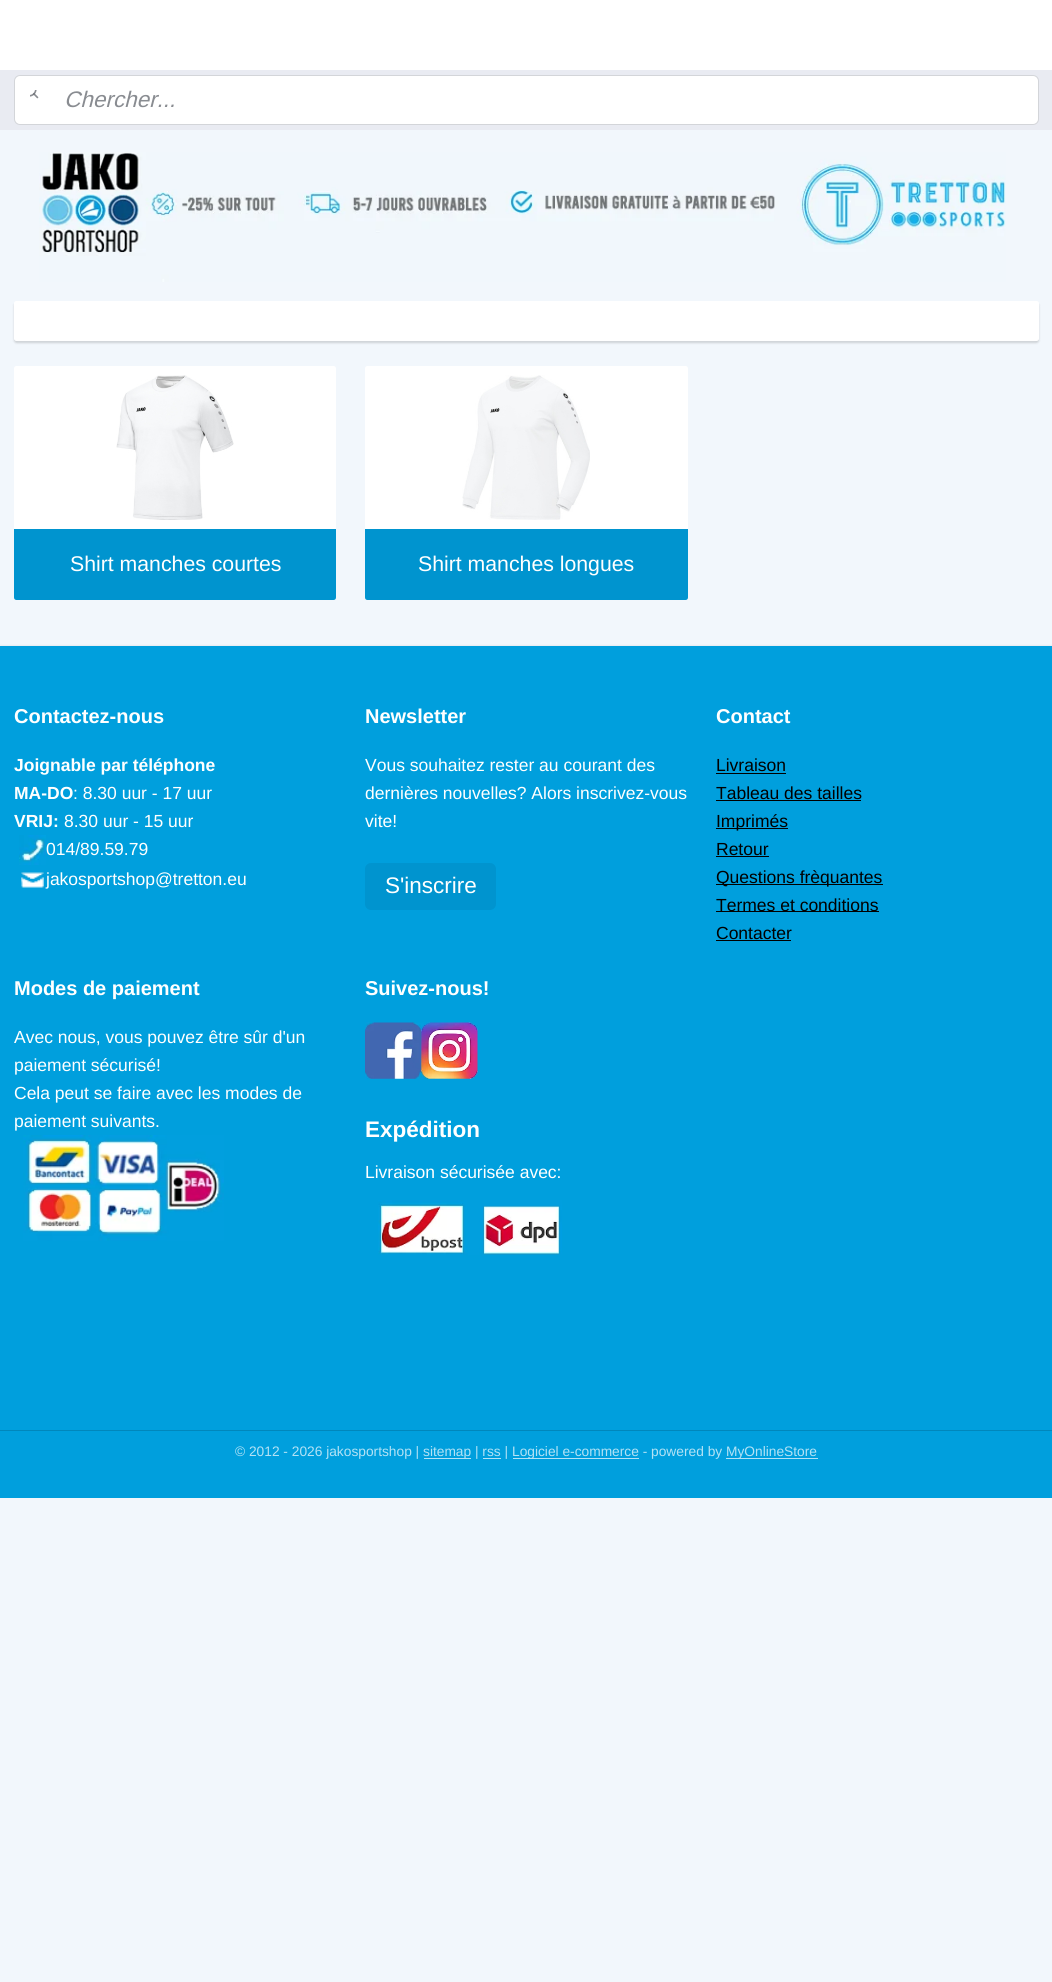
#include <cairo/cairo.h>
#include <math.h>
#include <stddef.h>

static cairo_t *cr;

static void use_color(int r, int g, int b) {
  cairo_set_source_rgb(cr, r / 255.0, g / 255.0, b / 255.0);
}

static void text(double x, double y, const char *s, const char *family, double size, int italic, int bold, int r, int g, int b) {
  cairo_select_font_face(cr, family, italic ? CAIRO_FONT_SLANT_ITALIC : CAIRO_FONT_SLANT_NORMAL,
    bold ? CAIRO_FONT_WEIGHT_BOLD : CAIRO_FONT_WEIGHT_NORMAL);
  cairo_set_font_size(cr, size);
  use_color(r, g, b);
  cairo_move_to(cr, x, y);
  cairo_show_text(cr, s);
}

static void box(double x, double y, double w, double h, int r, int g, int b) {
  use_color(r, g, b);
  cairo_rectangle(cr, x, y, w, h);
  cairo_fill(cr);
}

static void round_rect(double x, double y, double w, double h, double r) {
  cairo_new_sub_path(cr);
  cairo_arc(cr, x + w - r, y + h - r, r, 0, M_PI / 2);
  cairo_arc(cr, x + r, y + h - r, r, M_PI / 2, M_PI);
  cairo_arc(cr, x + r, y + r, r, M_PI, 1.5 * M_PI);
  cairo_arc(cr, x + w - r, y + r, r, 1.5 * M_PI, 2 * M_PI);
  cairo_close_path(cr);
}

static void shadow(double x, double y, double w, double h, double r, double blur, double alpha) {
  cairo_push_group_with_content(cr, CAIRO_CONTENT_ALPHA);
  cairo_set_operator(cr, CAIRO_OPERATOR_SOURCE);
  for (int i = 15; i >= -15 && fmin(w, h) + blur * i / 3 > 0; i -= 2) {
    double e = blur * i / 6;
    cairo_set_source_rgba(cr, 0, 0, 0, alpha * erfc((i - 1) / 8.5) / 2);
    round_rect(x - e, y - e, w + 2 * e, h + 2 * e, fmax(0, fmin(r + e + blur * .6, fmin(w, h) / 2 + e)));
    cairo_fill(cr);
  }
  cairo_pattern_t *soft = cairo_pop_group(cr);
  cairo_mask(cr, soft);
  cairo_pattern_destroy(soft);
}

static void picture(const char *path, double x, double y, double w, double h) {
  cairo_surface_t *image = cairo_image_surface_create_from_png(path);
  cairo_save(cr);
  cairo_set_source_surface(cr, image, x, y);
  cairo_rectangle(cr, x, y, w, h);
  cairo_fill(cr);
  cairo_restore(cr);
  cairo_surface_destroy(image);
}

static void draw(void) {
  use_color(242, 247, 252);
  cairo_paint(cr);
  box(0, 0, 1052, 70, 255, 255, 255);
  box(0, 70, 1052, 60, 233, 235, 242);
  use_color(255, 255, 255);
  round_rect(14.5, 75.5, 1024, 49, 5.5);
  cairo_fill_preserve(cr);
  use_color(211, 213, 217);
  cairo_set_line_width(cr, 1);
  cairo_stroke(cr);
  picture("img_01.png", 30, 90, 9, 9);
  picture("img_02.png", 39, 152, 967, 130);
  use_color(0, 0, 0);
  shadow(14, 303, 1025, 40, 2.5, 1, 0.15);
  use_color(255, 255, 255);
  round_rect(14.5, 301.5, 1024, 39, 2);
  cairo_fill_preserve(cr);
  cairo_stroke(cr);
  round_rect(14, 366, 322, 234, 2.5);
  cairo_fill(cr);
  picture("img_03.png", 116, 375, 118, 145);
  use_color(0, 148, 207);
  cairo_new_path(cr);
  cairo_move_to(cr, 14, 529);
  cairo_line_to(cr, 336, 529);
  cairo_line_to(cr, 336, 597.5);
  cairo_curve_to(cr, 336, 599, 335, 600, 333.5, 600);
  cairo_line_to(cr, 16.5, 600);
  cairo_curve_to(cr, 15, 600, 14, 599, 14, 597.5);
  cairo_close_path(cr);
  cairo_fill(cr);
  use_color(255, 255, 255);
  round_rect(365, 366, 323, 234, 2.5);
  cairo_fill(cr);
  picture("img_04.png", 462, 375, 128, 145);
  use_color(0, 148, 207);
  cairo_new_path(cr);
  cairo_move_to(cr, 365, 529);
  cairo_line_to(cr, 688, 529);
  cairo_line_to(cr, 688, 597.5);
  cairo_curve_to(cr, 688, 599, 687, 600, 685.5, 600);
  cairo_line_to(cr, 367.5, 600);
  cairo_curve_to(cr, 366, 600, 365, 599, 365, 597.5);
  cairo_close_path(cr);
  cairo_fill(cr);
  use_color(0, 0, 0);
  shadow(0, 645, 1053, 784, 0, 1, 0.05);
  box(0, 646, 1052, 784, 0, 159, 221);
  picture("img_05.png", 19, 835, 27, 30);
  picture("img_06.png", 21, 872, 23, 16);
  use_color(0, 148, 207);
  round_rect(365, 863, 131, 47, 6);
  cairo_fill(cr);
  box(716, 773, 70, 1, 0, 0, 0);
  box(716, 800, 145, 1, 0, 0, 0);
  box(716, 828, 72, 1, 0, 0, 0);
  box(716, 856, 53, 1, 0, 0, 0);
  box(716, 884, 167, 1, 0, 0, 0);
  box(716, 911, 163, 1, 0, 0, 0);
  box(716, 940, 75, 1, 0, 0, 0);
  picture("img_07.png", 23, 1135, 201, 106);
  picture("img_08.png", 365, 1022, 57, 57);
  picture("img_09.png", 421, 1022, 57, 57);
  picture("img_10.png", 378, 1200, 184, 55);
  box(0, 1431, 1052, 67, 0, 159, 221);
  box(0, 1430, 1052, 1, 0, 135, 188);
  box(424, 1458, 47, 1, 179, 226, 245);
  box(513, 1458, 126, 1, 179, 226, 245);
  box(726, 1458, 92, 1, 179, 226, 245);
  box(483, 1458, 18, 1, 179, 226, 245);
  text(64, 107, "Chercher...", "Arimo", 22.5, 1, 0, 137, 140, 145);
  text(70, 571, "Shirt manches courtes", "Arimo", 21.25, 0, 0, 255, 255, 255);
  text(418, 571, "Shirt manches longues", "Arimo", 21.25, 0, 0, 255, 255, 255);
  text(14, 723, "Contactez-nous", "Arimo", 20, 0, 1, 255, 255, 255);
  text(14, 771, "Joignable par téléphone", "Arimo", 17.5, 0, 1, 255, 255, 255);
  text(14, 799, "MA-DO", "Arimo", 17.5, 0, 1, 255, 255, 255);
  text(73, 799, ": 8.30 uur - 17 uur", "Arimo", 17.5, 0, 0, 255, 255, 255);
  text(14, 827, "VRIJ:", "Arimo", 17.5, 0, 1, 255, 255, 255);
  text(64, 827, "8.30 uur - 15 uur", "Arimo", 17.5, 0, 0, 255, 255, 255);
  text(46, 855, "014/89.59.79", "Arimo", 17.5, 0, 0, 255, 255, 255);
  text(46, 885, "jakosportshop@tretton.eu", "Arimo", 17.5, 0, 0, 255, 255, 255);
  text(365, 723, "Newsletter", "Arimo", 20, 0, 1, 255, 255, 255);
  text(365, 771, "Vous souhaitez rester au courant des", "Arimo", 17.5, 0, 0, 255, 255, 255);
  text(365, 799, "dernières nouvelles? Alors inscrivez-vous", "Arimo", 17.5, 0, 0, 255, 255, 255);
  text(365, 827, "vite!", "Arimo", 17.5, 0, 0, 255, 255, 255);
  text(385, 893, "S'inscrire", "Arimo", 22.5, 0, 0, 255, 255, 255);
  text(716, 723, "Contact", "Arimo", 20, 0, 1, 255, 255, 255);
  text(716, 771, "Livraison", "Arimo", 17.5, 0, 0, 0, 0, 0);
  text(716, 799, "Tableau des tailles", "Arimo", 17.5, 0, 0, 0, 0, 0);
  text(716, 827, "Imprimés", "Arimo", 17.5, 0, 0, 0, 0, 0);
  text(716, 855, "Retour", "Arimo", 17.5, 0, 0, 0, 0, 0);
  text(716, 883, "Questions frèquantes", "Arimo", 17.5, 0, 0, 0, 0, 0);
  text(716, 911, "Termes et conditions", "Arimo", 17.5, 0, 0, 0, 0, 0);
  text(716, 939, "Contacter", "Arimo", 17.5, 0, 0, 0, 0, 0);
  text(14, 995, "Modes de paiement", "Arimo", 20, 0, 1, 255, 255, 255);
  text(14, 1043, "Avec nous, vous pouvez être sûr d'un", "Arimo", 17.5, 0, 0, 255, 255, 255);
  text(14, 1071, "paiement sécurisé!", "Arimo", 17.5, 0, 0, 255, 255, 255);
  text(14, 1099, "Cela peut se faire avec les modes de", "Arimo", 17.5, 0, 0, 255, 255, 255);
  text(14, 1127, "paiement suivants.", "Arimo", 17.5, 0, 0, 255, 255, 255);
  text(365, 995, "Suivez-nous!", "Arimo", 20, 0, 1, 255, 255, 255);
  text(365, 1137, "Expédition", "Arimo", 22.5, 0, 1, 255, 255, 255);
  text(365, 1178, "Livraison sécurisée avec:", "Arimo", 17.5, 0, 0, 255, 255, 255);
  text(235, 1456, "© 2012 - 2026 jakosportshop |", "Arimo", 13.75, 0, 0, 179, 226, 245);
  text(423, 1456, "sitemap | rss |", "Arimo", 13.75, 0, 0, 179, 226, 245);
  text(512, 1456, "Logiciel e-commerce - powered by", "Arimo", 13.75, 0, 0, 179, 226, 245);
  text(726, 1456, "MyOnlineStore", "Arimo", 13.75, 0, 0, 179, 226, 245);
}

int main(void) {
  cairo_surface_t *surface = cairo_image_surface_create(CAIRO_FORMAT_RGB24, 1052, 1982);
  cr = cairo_create(surface);
  cairo_font_options_t *options = cairo_font_options_create();
  cairo_font_options_set_hint_metrics(options, CAIRO_HINT_METRICS_OFF);
  cairo_font_options_set_hint_style(options, CAIRO_HINT_STYLE_NONE);
  cairo_set_font_options(cr, options);
  cairo_set_miter_limit(cr, 4);
  draw();
  cairo_surface_write_to_png(surface, "out.png");
  cairo_font_options_destroy(options);
  cairo_destroy(cr);
  cairo_surface_destroy(surface);
  return 0;
}
